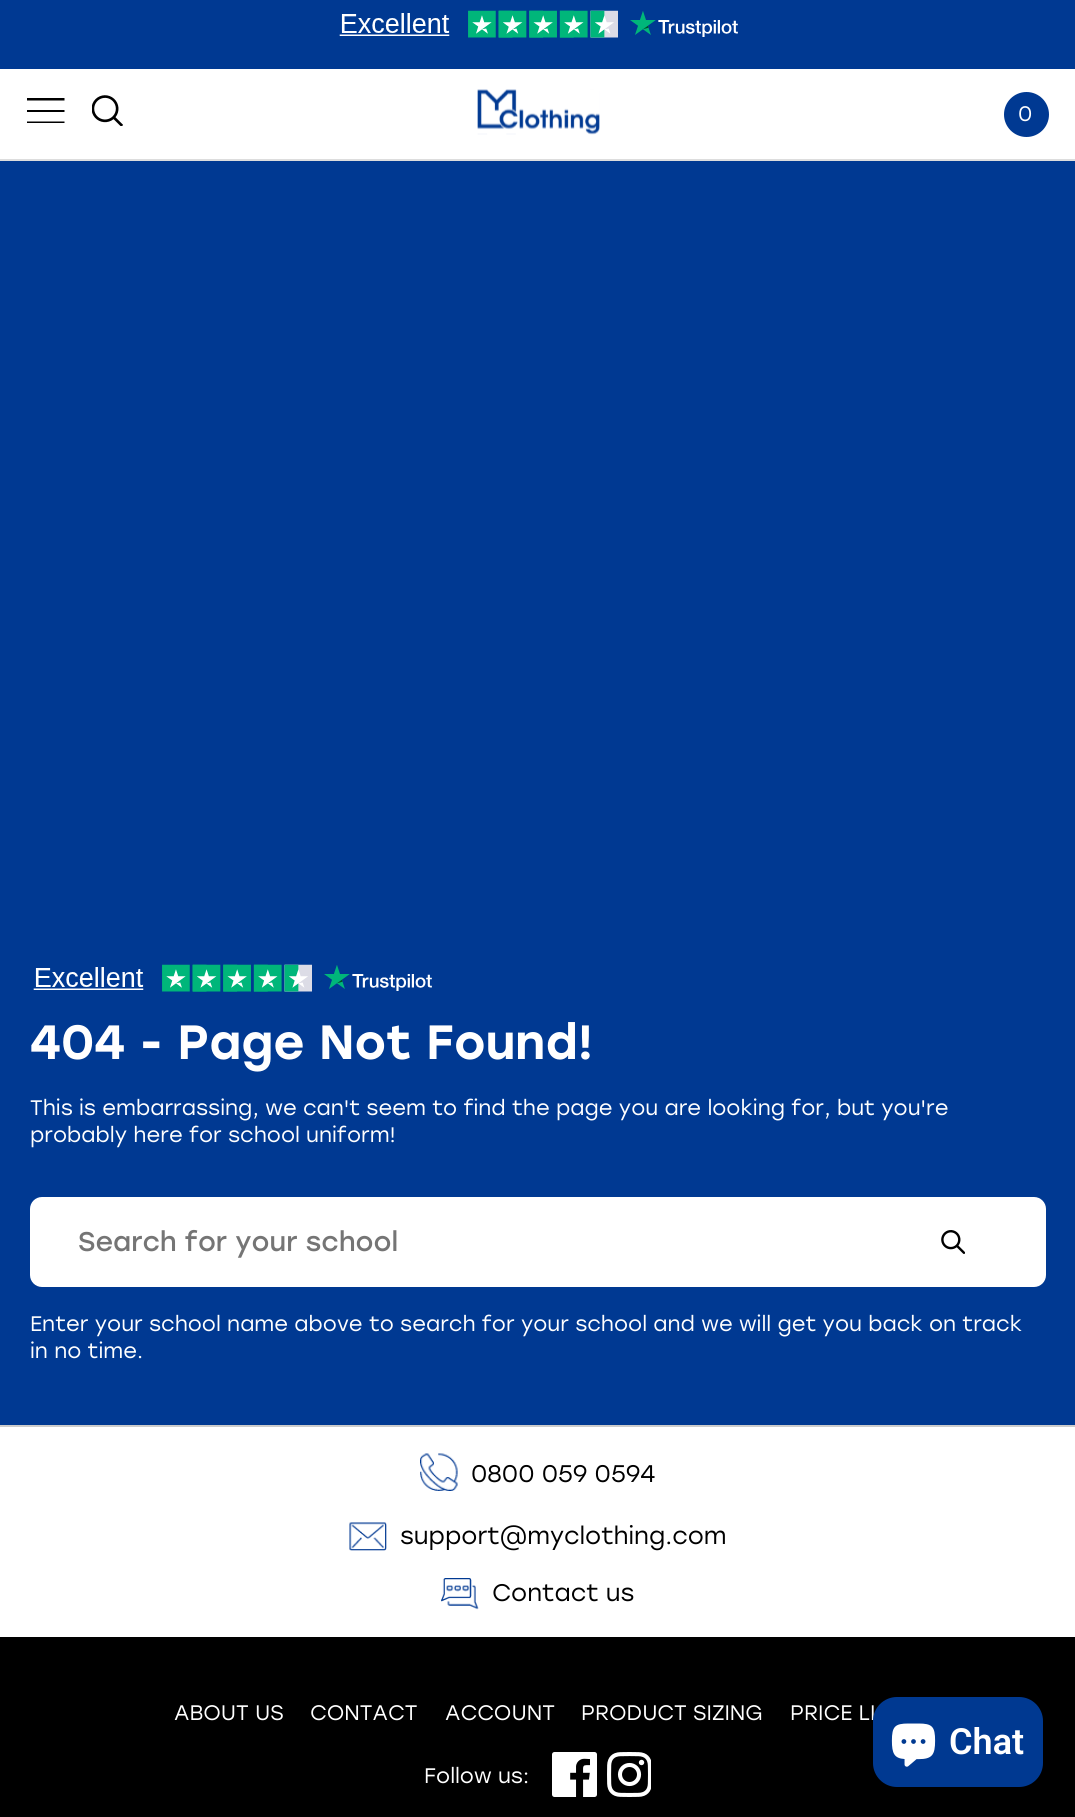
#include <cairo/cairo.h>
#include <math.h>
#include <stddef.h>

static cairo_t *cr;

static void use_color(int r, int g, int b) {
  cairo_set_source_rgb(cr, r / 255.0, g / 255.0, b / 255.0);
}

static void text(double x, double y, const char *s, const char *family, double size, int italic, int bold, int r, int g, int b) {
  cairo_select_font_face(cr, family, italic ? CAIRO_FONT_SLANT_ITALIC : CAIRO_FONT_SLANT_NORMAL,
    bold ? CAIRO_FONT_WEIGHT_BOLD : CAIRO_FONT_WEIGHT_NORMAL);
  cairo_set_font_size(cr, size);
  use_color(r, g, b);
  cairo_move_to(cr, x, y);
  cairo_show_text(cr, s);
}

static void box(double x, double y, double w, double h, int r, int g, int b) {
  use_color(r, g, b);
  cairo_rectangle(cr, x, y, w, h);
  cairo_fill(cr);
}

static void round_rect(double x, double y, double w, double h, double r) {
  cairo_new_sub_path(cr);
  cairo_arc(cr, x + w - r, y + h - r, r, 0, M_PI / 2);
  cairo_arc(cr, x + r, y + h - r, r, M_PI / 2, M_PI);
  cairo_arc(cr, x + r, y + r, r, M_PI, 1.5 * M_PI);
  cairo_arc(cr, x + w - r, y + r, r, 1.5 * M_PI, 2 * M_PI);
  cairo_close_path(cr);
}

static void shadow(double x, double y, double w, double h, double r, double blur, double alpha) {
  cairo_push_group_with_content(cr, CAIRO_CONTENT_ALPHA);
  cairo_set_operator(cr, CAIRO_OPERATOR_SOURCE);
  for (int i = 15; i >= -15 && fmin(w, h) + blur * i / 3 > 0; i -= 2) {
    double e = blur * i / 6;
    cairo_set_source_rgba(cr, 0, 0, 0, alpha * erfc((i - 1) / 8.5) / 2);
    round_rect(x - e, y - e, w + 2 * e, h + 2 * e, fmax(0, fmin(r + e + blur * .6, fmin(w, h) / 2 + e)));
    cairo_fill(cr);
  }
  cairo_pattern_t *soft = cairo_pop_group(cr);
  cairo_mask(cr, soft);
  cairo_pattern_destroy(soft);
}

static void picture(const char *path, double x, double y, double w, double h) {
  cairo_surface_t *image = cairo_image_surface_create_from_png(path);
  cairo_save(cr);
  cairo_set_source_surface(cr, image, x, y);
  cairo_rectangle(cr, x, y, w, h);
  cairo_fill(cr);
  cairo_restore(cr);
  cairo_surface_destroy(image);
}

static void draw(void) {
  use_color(255, 255, 255);
  cairo_paint(cr);
  box(0, 0, 1075, 69, 0, 57, 146);
  picture("img_01.png", 339, 10, 399, 28);
  box(0, 159, 1075, 2, 221, 221, 221);
  cairo_save(cr);
  cairo_rectangle(cr, 27, 98, 38, 25);
  cairo_clip(cr);
  use_color(0, 0, 0);
  cairo_new_path(cr);
  cairo_move_to(cr, 27, 98);
  cairo_line_to(cr, 27, 100.5);
  cairo_line_to(cr, 64.5, 100.5);
  cairo_line_to(cr, 64.5, 98);
  cairo_close_path(cr);
  cairo_move_to(cr, 27, 112);
  cairo_line_to(cr, 64.5, 112);
  cairo_line_to(cr, 64.5, 110);
  cairo_line_to(cr, 27, 110);
  cairo_close_path(cr);
  cairo_move_to(cr, 27, 124);
  cairo_line_to(cr, 64.5, 124);
  cairo_line_to(cr, 64.5, 121.5);
  cairo_line_to(cr, 27, 121.5);
  cairo_close_path(cr);
  cairo_fill(cr);
  cairo_restore(cr);
  picture("img_02.png", 92, 95, 31, 31);
  picture("img_03.png", 477, 89, 123, 46);
  use_color(0, 57, 146);
  cairo_arc(cr, 1026.5, 114.5, 22.5, 0, 2 * M_PI);
  cairo_fill(cr);
  box(0, 161, 1075, 1264, 0, 57, 146);
  picture("img_01.png", 33, 964, 399, 28);
  use_color(255, 255, 255);
  round_rect(30, 1197, 1016, 90, 12);
  cairo_fill(cr);
  picture("img_04.png", 941, 1230, 24, 24);
  box(0, 1425, 1075, 2, 204, 204, 204);
  picture("img_05.png", 420, 1453, 38, 38);
  picture("img_06.png", 349, 1522, 38, 29);
  picture("img_07.png", 441, 1578, 38, 32);
  box(0, 1637, 1075, 180, 0, 0, 0);
  picture("img_08.png", 552, 1752, 45, 45);
  picture("img_09.png", 607, 1752, 44, 45);
  use_color(0, 0, 0);
  shadow(873, 1697, 170, 90, 24, 4, 0.15);
  text(1018, 121, "0", "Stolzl", 21, 0, 0, 255, 255, 255);
  text(30, 1059, "404 - Page Not Found!", "Stolzl Medium", 48, 0, 0, 255, 255, 255);
  text(30, 1115, "This is embarrassing, we can't seem to find the page you are looking for, but you're", "Stolzl", 21, 0, 0, 255, 255, 255);
  text(30, 1142, "probably here for school uniform!", "Stolzl", 21, 0, 0, 255, 255, 255);
  text(78, 1251, "Search for your school", "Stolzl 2", 27, 0, 0, 117, 117, 117);
  text(30, 1331, "Enter your school name above to search for your school and we will get you back on track", "Stolzl", 21, 0, 0, 255, 255, 255);
  text(30, 1358, "in no time.", "Stolzl", 21, 0, 0, 255, 255, 255);
  text(471, 1482, "0800 059 0594", "Stolzl", 24, 0, 0, 0, 0, 0);
  text(400, 1544, "support@myclothing.com", "Stolzl", 24, 0, 0, 0, 0, 0);
  text(492, 1601, "Contact us", "Stolzl", 24, 0, 0, 0, 0, 0);
  text(174, 1720, "ABOUT US", "Stolzl", 21, 0, 0, 255, 255, 255);
  text(310, 1720, "CONTACT", "Stolzl", 21, 0, 0, 255, 255, 255);
  text(445, 1720, "ACCOUNT", "Stolzl", 21, 0, 0, 255, 255, 255);
  text(581, 1720, "PRODUCT SIZING", "Stolzl", 21, 0, 0, 255, 255, 255);
  text(790, 1720, "PRICE LI", "Stolzl", 21, 0, 0, 255, 255, 255);
  text(424, 1783, "Follow us:", "Stolzl", 21, 0, 0, 255, 255, 255);
  use_color(0, 57, 145);
  round_rect(873, 1697, 170, 90, 24);
  cairo_fill(cr);
  picture("img_10.png", 891, 1723, 45, 44);
  text(949, 1754, "Chat", "Roboto SemiBold", 36, 0, 0, 255, 255, 255);
}

int main(void) {
  cairo_surface_t *surface = cairo_image_surface_create(CAIRO_FORMAT_RGB24, 1075, 1817);
  cr = cairo_create(surface);
  cairo_font_options_t *options = cairo_font_options_create();
  cairo_font_options_set_hint_metrics(options, CAIRO_HINT_METRICS_OFF);
  cairo_font_options_set_hint_style(options, CAIRO_HINT_STYLE_NONE);
  cairo_set_font_options(cr, options);
  cairo_set_miter_limit(cr, 4);
  draw();
  cairo_surface_write_to_png(surface, "out.png");
  cairo_font_options_destroy(options);
  cairo_destroy(cr);
  cairo_surface_destroy(surface);
  return 0;
}
